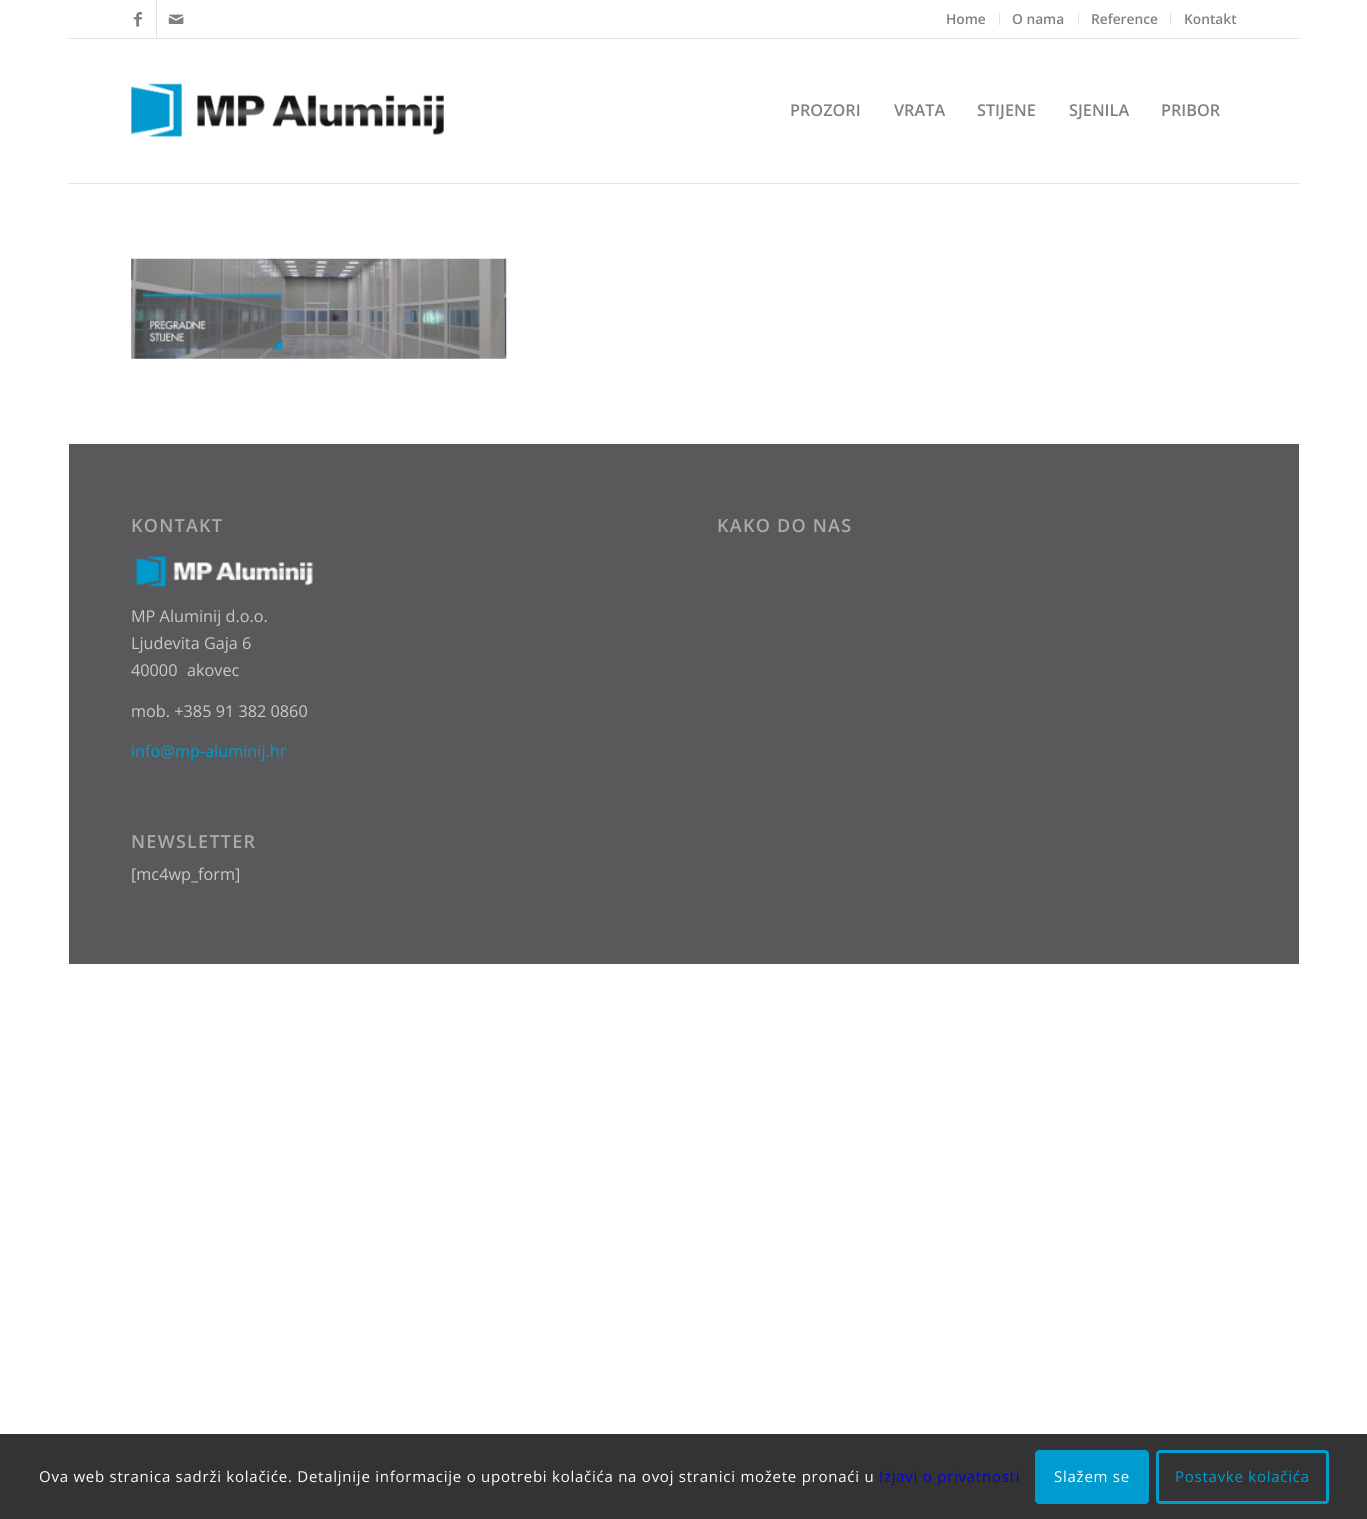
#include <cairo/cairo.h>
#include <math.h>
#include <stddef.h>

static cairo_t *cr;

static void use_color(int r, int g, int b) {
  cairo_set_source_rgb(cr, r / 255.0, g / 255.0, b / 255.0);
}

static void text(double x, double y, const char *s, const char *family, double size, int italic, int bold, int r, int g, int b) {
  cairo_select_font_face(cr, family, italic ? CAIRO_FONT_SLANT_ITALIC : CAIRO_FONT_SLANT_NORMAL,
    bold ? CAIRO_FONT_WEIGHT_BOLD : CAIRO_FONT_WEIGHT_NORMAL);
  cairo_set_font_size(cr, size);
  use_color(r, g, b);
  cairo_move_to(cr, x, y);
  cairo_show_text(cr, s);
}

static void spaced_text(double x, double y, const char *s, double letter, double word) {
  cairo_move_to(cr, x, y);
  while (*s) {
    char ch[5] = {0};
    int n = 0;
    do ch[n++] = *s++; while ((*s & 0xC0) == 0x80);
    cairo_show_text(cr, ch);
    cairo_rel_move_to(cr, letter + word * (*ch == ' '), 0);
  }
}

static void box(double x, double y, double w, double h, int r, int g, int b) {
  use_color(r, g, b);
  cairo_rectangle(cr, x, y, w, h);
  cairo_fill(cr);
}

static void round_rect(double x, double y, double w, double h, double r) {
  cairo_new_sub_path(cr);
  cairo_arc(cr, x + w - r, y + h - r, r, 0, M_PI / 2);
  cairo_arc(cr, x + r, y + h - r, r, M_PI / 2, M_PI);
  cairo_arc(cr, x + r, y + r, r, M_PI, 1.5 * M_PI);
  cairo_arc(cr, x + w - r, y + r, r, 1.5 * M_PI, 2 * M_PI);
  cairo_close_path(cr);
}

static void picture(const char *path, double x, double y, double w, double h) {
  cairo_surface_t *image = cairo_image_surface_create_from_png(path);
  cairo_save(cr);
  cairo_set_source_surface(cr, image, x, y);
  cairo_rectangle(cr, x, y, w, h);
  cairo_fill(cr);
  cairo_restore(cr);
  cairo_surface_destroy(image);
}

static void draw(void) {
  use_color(255, 255, 255);
  cairo_paint(cr);
  box(69, 38, 1230, 1, 225, 225, 225);
  box(156, 0, 1, 38, 225, 225, 225);
  picture("img_01.png", 133, 12, 9, 15);
  picture("img_02.png", 168, 14, 16, 10);
  box(999, 13, 1, 12, 225, 225, 225);
  box(1078, 13, 1, 12, 225, 225, 225);
  box(1170, 13, 1, 12, 225, 225, 225);
  box(69, 183, 1230, 1, 225, 225, 225);
  picture("img_03.png", 131, 83, 313, 54);
  picture("img_04.png", 131, 258, 376, 101);
  box(69, 445, 1230, 519, 89, 89, 91);
  box(69, 444, 1230, 1, 85, 85, 85);
  picture("img_05.png", 136, 556, 177, 31);
  box(0, 1434, 1367, 85, 51, 51, 51);
  use_color(0, 155, 207);
  round_rect(1035, 1450, 114, 54, 4);
  cairo_fill(cr);
  round_rect(1157.5, 1451.5, 170, 51, 2.5);
  cairo_set_line_width(cr, 3);
  cairo_stroke(cr);
  text(946, 24, "Home", "Open Sans SemiBold", 13.75, 0, 0, 128, 128, 128);
  text(1012, 24, "O nama", "Open Sans SemiBold", 13.75, 0, 0, 128, 128, 128);
  text(1091, 24, "Reference", "Open Sans SemiBold", 13.75, 0, 0, 128, 128, 128);
  text(1184, 24, "Kontakt", "Open Sans SemiBold", 13.75, 0, 0, 128, 128, 128);
  text(790, 116, "PROZORI", "Open Sans SemiBold", 16.25, 0, 0, 128, 128, 128);
  text(894, 116, "VRATA", "Open Sans SemiBold", 16.25, 0, 0, 128, 128, 128);
  text(977, 116, "STIJENE", "Open Sans SemiBold", 16.25, 0, 0, 128, 128, 128);
  text(1069, 116, "SJENILA", "Open Sans SemiBold", 16.25, 0, 0, 128, 128, 128);
  text(1161, 116, "PRIBOR", "Open Sans SemiBold", 16.25, 0, 0, 128, 128, 128);
  cairo_set_font_size(cr, 18);
  use_color(171, 171, 172);
  spaced_text(131, 532, "KONTAKT", 1.25, 0);
  text(131, 622, "MP Aluminij d.o.o.", "Open Sans", 16.25, 0, 0, 201, 201, 201);
  text(131, 649, "Ljudevita Gaja 6", "Open Sans", 16.25, 0, 0, 201, 201, 201);
  text(131, 676, "40000", "Open Sans", 16.25, 0, 0, 201, 201, 201);
  text(187, 676, "akovec", "Open Sans", 16.25, 0, 0, 201, 201, 201);
  text(131, 717, "mob. +385 91 382 0860", "Open Sans", 16.25, 0, 0, 201, 201, 201);
  text(131, 757, "info@mp-aluminij.hr", "Open Sans", 16.25, 0, 0, 0, 155, 207);
  cairo_select_font_face(cr, "Open Sans SemiBold", CAIRO_FONT_SLANT_NORMAL, CAIRO_FONT_WEIGHT_NORMAL);
  cairo_set_font_size(cr, 18);
  use_color(171, 171, 172);
  spaced_text(131, 848, "NEWSLETTER", 1.25, 0);
  text(131, 880, "[mc4wp_form]", "Open Sans", 16.25, 0, 0, 201, 201, 201);
  cairo_select_font_face(cr, "Open Sans SemiBold", CAIRO_FONT_SLANT_NORMAL, CAIRO_FONT_WEIGHT_NORMAL);
  cairo_set_font_size(cr, 18);
  use_color(171, 171, 172);
  spaced_text(717, 532, "KAKO DO NAS", 1.25, 0);
  cairo_select_font_face(cr, "Open Sans", CAIRO_FONT_SLANT_NORMAL, CAIRO_FONT_WEIGHT_NORMAL);
  cairo_set_font_size(cr, 15);
  use_color(255, 255, 255);
  spaced_text(39, 1482, "Ova web stranica sadrži kolačiće. Detaljnije informacije o upotrebi kolačića na ovoj stranici možete pronaći u", 0.75, 0);
  use_color(0, 0, 238);
  spaced_text(879, 1482, "Izjavi o privatnosti", 0.75, 0);
  use_color(255, 255, 255);
  spaced_text(1054, 1482, "Slažem se", 0.75, 0);
  use_color(0, 155, 207);
  spaced_text(1175, 1482, "Postavke kolačića", 0.75, 0);
}

int main(void) {
  cairo_surface_t *surface = cairo_image_surface_create(CAIRO_FORMAT_RGB24, 1367, 1519);
  cr = cairo_create(surface);
  cairo_font_options_t *options = cairo_font_options_create();
  cairo_font_options_set_hint_metrics(options, CAIRO_HINT_METRICS_OFF);
  cairo_font_options_set_hint_style(options, CAIRO_HINT_STYLE_NONE);
  cairo_set_font_options(cr, options);
  cairo_set_miter_limit(cr, 4);
  draw();
  cairo_surface_write_to_png(surface, "out.png");
  cairo_font_options_destroy(options);
  cairo_destroy(cr);
  cairo_surface_destroy(surface);
  return 0;
}
